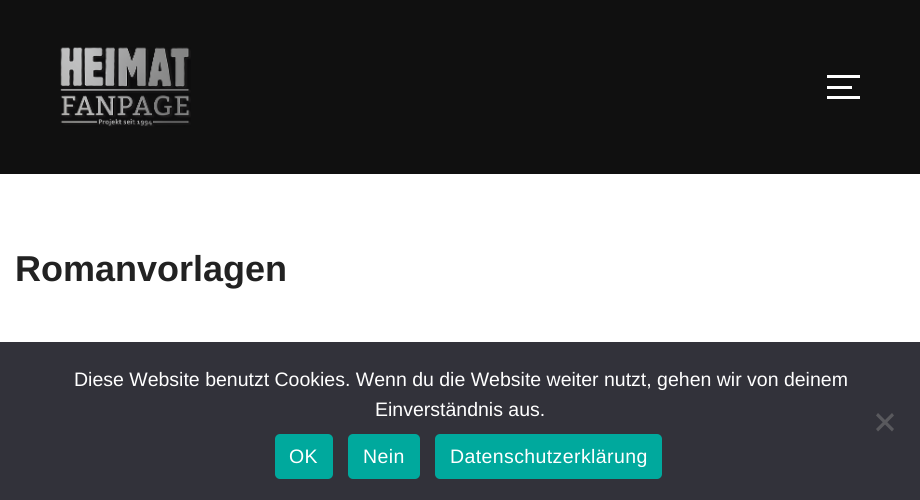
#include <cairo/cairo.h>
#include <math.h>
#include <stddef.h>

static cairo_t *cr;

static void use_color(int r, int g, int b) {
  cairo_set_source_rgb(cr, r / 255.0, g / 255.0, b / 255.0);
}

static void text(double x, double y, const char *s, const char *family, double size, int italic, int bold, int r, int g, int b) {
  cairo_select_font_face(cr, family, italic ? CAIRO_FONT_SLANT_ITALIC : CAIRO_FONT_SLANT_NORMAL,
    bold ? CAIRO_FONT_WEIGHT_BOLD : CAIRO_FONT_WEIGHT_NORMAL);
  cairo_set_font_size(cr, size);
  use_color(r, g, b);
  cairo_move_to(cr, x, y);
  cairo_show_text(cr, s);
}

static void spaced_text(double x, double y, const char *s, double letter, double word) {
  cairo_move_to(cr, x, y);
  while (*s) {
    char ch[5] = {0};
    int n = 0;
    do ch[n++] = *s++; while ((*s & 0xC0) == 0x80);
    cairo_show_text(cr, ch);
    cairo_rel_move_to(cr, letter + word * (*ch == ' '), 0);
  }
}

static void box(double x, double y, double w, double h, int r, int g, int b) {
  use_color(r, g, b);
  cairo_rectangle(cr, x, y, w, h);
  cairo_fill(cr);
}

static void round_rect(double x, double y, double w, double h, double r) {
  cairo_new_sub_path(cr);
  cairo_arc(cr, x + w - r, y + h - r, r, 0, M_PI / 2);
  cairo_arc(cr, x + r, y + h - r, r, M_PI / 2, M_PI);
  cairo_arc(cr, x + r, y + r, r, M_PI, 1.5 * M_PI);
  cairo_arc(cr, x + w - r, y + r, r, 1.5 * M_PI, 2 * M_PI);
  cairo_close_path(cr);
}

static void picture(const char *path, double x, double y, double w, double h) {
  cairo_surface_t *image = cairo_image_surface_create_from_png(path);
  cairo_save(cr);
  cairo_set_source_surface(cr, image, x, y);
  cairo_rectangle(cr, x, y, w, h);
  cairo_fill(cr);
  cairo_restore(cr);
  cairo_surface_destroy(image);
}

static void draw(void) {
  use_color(255, 255, 255);
  cairo_paint(cr);
  box(0, 0, 920, 174, 16, 16, 16);
  picture("img_01.png", 60, 47, 131, 80);
  box(827, 75, 33, 3, 255, 255, 255);
  box(827, 86, 25, 3, 255, 255, 255);
  box(827, 96, 33, 3, 255, 255, 255);
  box(0, 342, 920, 158, 50, 50, 58);
  use_color(89, 89, 93);
  cairo_new_path(cr);
  cairo_move_to(cr, 892, 413);
  cairo_line_to(cr, 894, 415.5);
  cairo_line_to(cr, 878, 431.5);
  cairo_line_to(cr, 876, 429);
  cairo_close_path(cr);
  cairo_fill(cr);
  cairo_new_path(cr);
  cairo_move_to(cr, 876, 415.5);
  cairo_line_to(cr, 878, 413);
  cairo_line_to(cr, 894, 429);
  cairo_line_to(cr, 892, 431.5);
  cairo_close_path(cr);
  cairo_fill(cr);
  use_color(0, 169, 157);
  round_rect(275, 434, 58, 45, 5);
  cairo_fill(cr);
  round_rect(348, 434, 72, 45, 5);
  cairo_fill(cr);
  round_rect(435, 434, 227, 45, 5);
  cairo_fill(cr);
  text(15, 281, "Romanvorlagen", "Liberation Sans", 36, 0, 1, 34, 34, 34);
  text(74, 386, "Diese Website benutzt Cookies. Wenn du die Website weiter nutzt, gehen wir von deinem", "Liberation Sans", 19.5, 0, 0, 255, 255, 255);
  text(375, 416, "Einverständnis aus.", "Liberation Sans", 19.5, 0, 0, 255, 255, 255);
  spaced_text(289, 463, "OK", 0.4, 0);
  spaced_text(363, 463, "Nein", 0.4, 0);
  spaced_text(450, 463, "Datenschutzerklärung", 0.4, 0);
}

int main(void) {
  cairo_surface_t *surface = cairo_image_surface_create(CAIRO_FORMAT_RGB24, 920, 500);
  cr = cairo_create(surface);
  cairo_font_options_t *options = cairo_font_options_create();
  cairo_font_options_set_hint_metrics(options, CAIRO_HINT_METRICS_OFF);
  cairo_font_options_set_hint_style(options, CAIRO_HINT_STYLE_NONE);
  cairo_set_font_options(cr, options);
  cairo_set_miter_limit(cr, 4);
  draw();
  cairo_surface_write_to_png(surface, "out.png");
  cairo_font_options_destroy(options);
  cairo_destroy(cr);
  cairo_surface_destroy(surface);
  return 0;
}
